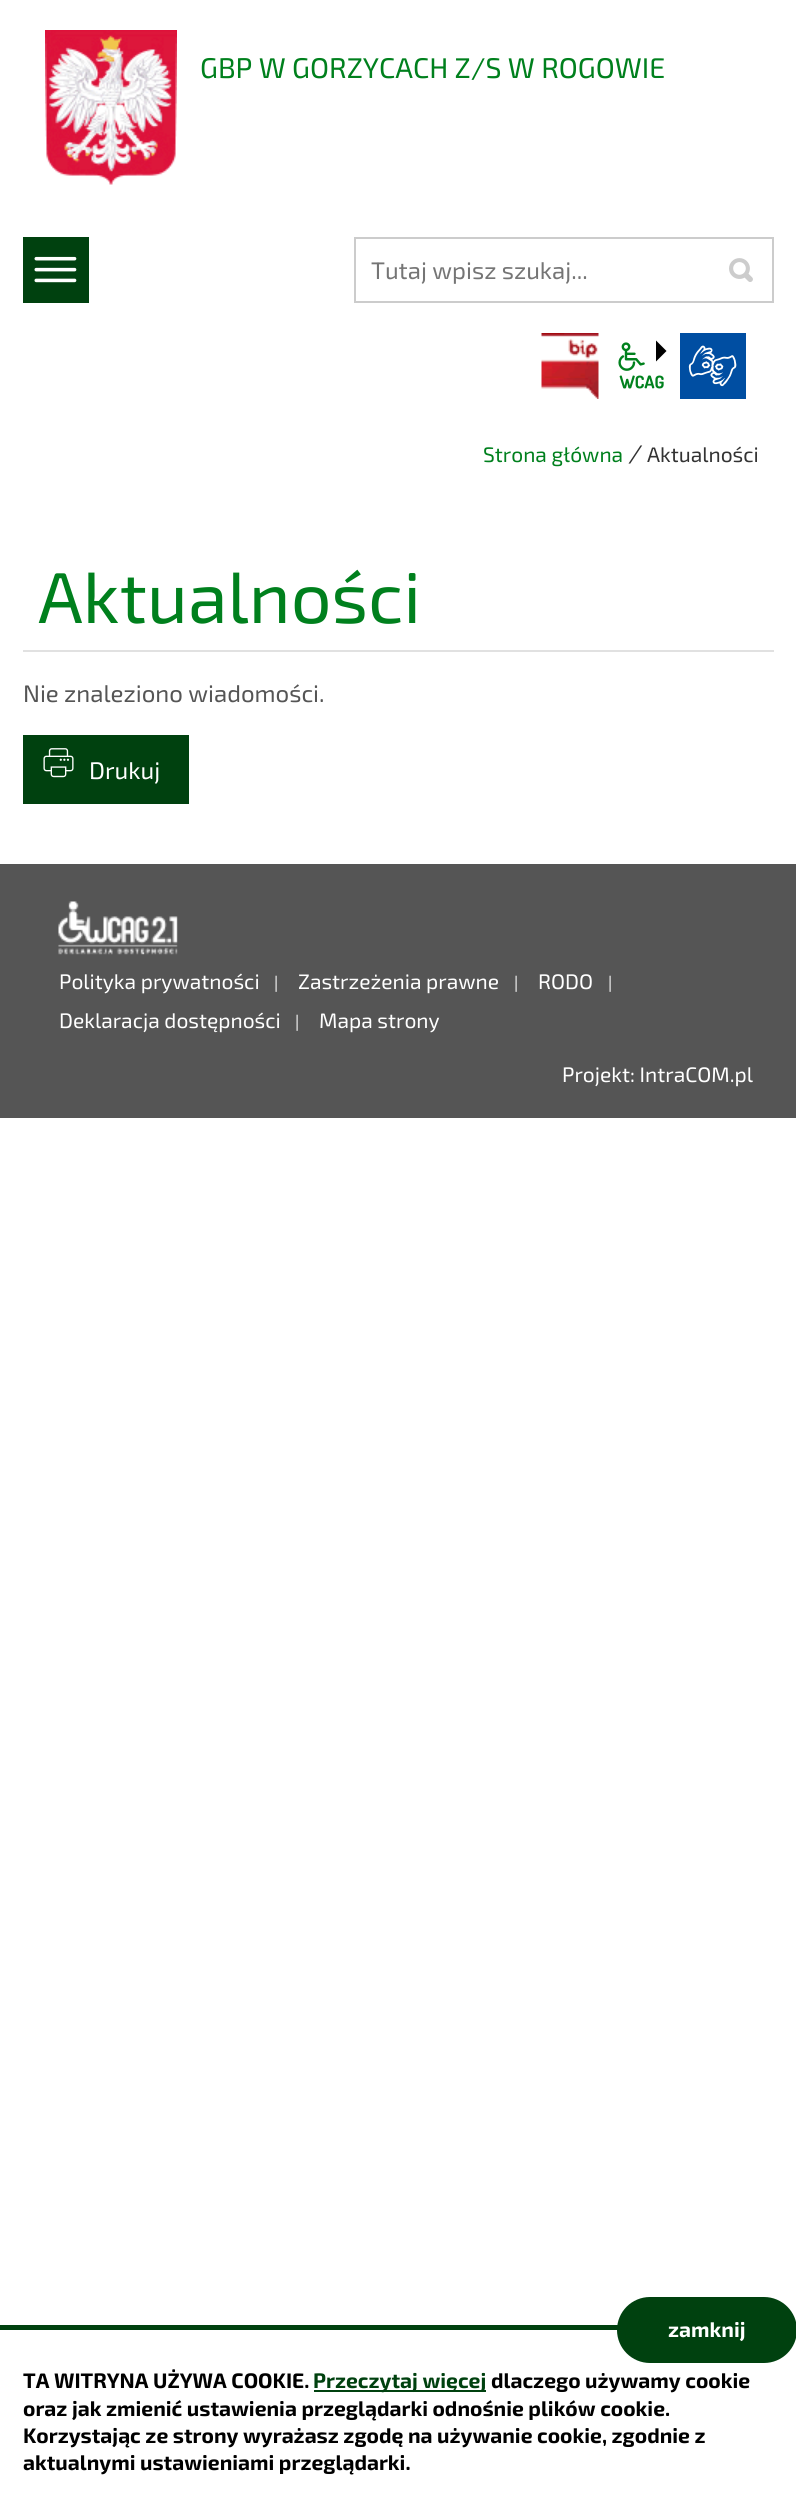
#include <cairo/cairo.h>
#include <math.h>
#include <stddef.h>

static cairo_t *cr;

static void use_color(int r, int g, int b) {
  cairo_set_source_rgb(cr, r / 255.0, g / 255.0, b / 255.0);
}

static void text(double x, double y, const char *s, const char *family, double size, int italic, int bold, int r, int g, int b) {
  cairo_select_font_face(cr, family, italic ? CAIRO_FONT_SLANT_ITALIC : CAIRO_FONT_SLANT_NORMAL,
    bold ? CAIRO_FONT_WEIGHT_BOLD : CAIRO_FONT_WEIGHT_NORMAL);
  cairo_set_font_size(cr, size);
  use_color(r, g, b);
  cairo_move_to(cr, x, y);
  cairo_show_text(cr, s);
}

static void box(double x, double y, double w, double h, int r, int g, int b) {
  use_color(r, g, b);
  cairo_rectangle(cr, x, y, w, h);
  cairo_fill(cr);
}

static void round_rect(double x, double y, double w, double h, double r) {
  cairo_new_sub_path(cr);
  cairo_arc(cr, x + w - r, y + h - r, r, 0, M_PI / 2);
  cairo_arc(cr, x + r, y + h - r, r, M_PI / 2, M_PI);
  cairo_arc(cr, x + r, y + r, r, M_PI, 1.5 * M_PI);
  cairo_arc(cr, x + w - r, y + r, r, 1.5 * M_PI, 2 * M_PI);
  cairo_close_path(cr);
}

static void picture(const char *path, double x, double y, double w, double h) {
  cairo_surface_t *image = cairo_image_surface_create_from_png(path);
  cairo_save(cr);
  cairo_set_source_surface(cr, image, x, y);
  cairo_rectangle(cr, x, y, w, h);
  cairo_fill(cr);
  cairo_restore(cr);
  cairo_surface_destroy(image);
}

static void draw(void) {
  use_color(255, 255, 255);
  cairo_paint(cr);
  picture("img_01.png", 45, 30, 132, 155);
  box(23, 237, 66, 66, 0, 65, 15);
  picture("img_02.png", 34, 256, 43, 27);
  cairo_rectangle(cr, 355, 238, 418, 64);
  use_color(204, 204, 204);
  cairo_stroke(cr);
  picture("img_03.png", 729, 258, 24, 24);
  picture("img_04.png", 541, 333, 58, 66);
  picture("img_05.png", 618, 342, 46, 47);
  use_color(0, 0, 0);
  cairo_new_path(cr);
  cairo_move_to(cr, 656, 340.5);
  cairo_line_to(cr, 666.5, 351);
  cairo_line_to(cr, 656, 361.5);
  cairo_close_path(cr);
  cairo_fill(cr);
  box(680, 333, 66, 66, 0, 78, 162);
  picture("img_06.png", 688, 345, 49, 42);
  box(23, 650, 751, 2, 225, 225, 225);
  box(23, 735, 166, 69, 0, 65, 15);
  picture("img_07.png", 43, 748, 31, 30);
  box(0, 864, 796, 254, 85, 85, 85);
  picture("img_08.png", 58, 901, 120, 54);
  box(0, 2325, 618, 5, 0, 65, 15);
  round_rect(617, 2297, 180, 66, 33);
  cairo_fill(cr);
  box(314, 2390, 172, 2, 0, 65, 15);
  text(200, 78, "GBP W GORZYCACH Z/S W ROGOWIE", "Exo 2", 28.5, 0, 0, 0, 128, 29);
  text(371, 279, "Tutaj wpisz szukaj...", "Exo 2", 24, 0, 0, 117, 117, 117);
  text(483, 462, "Strona główna", "Exo 2", 21, 0, 0, 0, 128, 29);
  text(629, 462, "/", "Exo 2", 24, 1, 0, 51, 51, 51);
  text(647, 462, "Aktualności", "Exo 2", 21, 0, 0, 51, 51, 51);
  text(38, 623, "Aktualności", "Exo 2", 72, 0, 0, 0, 128, 29);
  text(23, 702, "Nie znaleziono wiadomości.", "Exo 2", 24, 0, 0, 85, 85, 85);
  text(89, 779, "Drukuj", "Exo 2", 24, 0, 0, 255, 255, 255);
  text(59, 989, "Polityka prywatności", "Exo 2", 21, 0, 0, 255, 255, 255);
  text(274, 989, "|", "Exo 2", 17, 0, 0, 255, 255, 255);
  text(298, 989, "Zastrzeżenia prawne", "Exo 2", 21, 0, 0, 255, 255, 255);
  text(514, 989, "|", "Exo 2", 17, 0, 0, 255, 255, 255);
  text(538, 989, "RODO", "Exo 2", 21, 0, 0, 255, 255, 255);
  text(608, 989, "|", "Exo 2", 17, 0, 0, 255, 255, 255);
  text(59, 1028, "Deklaracja dostępności", "Exo 2", 21, 0, 0, 255, 255, 255);
  text(295, 1028, "|", "Exo 2", 17, 0, 0, 255, 255, 255);
  text(319, 1028, "Mapa strony", "Exo 2", 21, 0, 0, 255, 255, 255);
  text(562, 1082, "Projekt: IntraCOM.pl", "Exo 2", 21, 0, 0, 255, 255, 255);
  text(668, 2337, "zamknij", "Exo 2", 21, 0, 1, 255, 255, 255);
  text(23, 2388, "TA WITRYNA UŻYWA COOKIE.", "Exo 2", 21, 0, 1, 0, 0, 0);
  text(313, 2388, "Przeczytaj więcej", "Exo 2", 21, 0, 1, 0, 65, 15);
  text(491, 2388, "dlaczego używamy cookie", "Exo 2", 21, 0, 1, 0, 0, 0);
  text(23, 2416, "oraz jak zmienić ustawienia przeglądarki odnośnie plików cookie.", "Exo 2", 21, 0, 1, 0, 0, 0);
  text(23, 2443, "Korzystając ze strony wyrażasz zgodę na używanie cookie, zgodnie z", "Exo 2", 21, 0, 1, 0, 0, 0);
  text(23, 2470, "aktualnymi ustawieniami przeglądarki.", "Exo 2", 21, 0, 1, 0, 0, 0);
}

int main(void) {
  cairo_surface_t *surface = cairo_image_surface_create(CAIRO_FORMAT_RGB24, 796, 2513);
  cr = cairo_create(surface);
  cairo_font_options_t *options = cairo_font_options_create();
  cairo_font_options_set_hint_metrics(options, CAIRO_HINT_METRICS_OFF);
  cairo_font_options_set_hint_style(options, CAIRO_HINT_STYLE_NONE);
  cairo_set_font_options(cr, options);
  cairo_set_miter_limit(cr, 4);
  draw();
  cairo_surface_write_to_png(surface, "out.png");
  cairo_font_options_destroy(options);
  cairo_destroy(cr);
  cairo_surface_destroy(surface);
  return 0;
}
